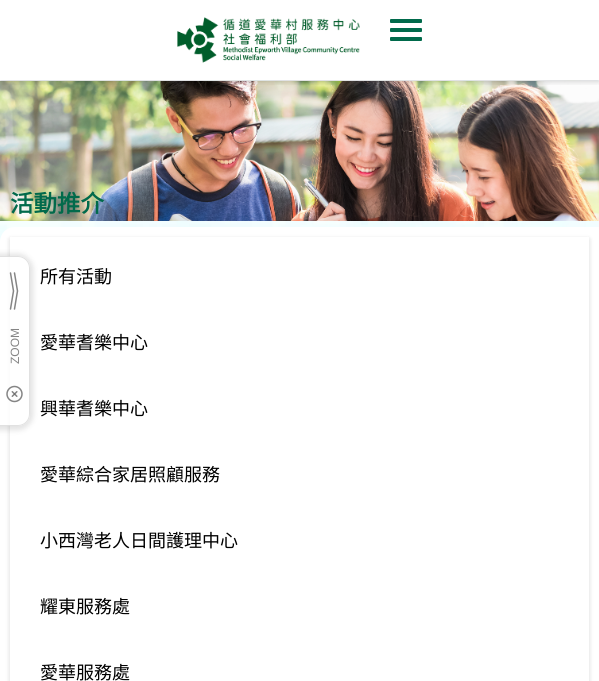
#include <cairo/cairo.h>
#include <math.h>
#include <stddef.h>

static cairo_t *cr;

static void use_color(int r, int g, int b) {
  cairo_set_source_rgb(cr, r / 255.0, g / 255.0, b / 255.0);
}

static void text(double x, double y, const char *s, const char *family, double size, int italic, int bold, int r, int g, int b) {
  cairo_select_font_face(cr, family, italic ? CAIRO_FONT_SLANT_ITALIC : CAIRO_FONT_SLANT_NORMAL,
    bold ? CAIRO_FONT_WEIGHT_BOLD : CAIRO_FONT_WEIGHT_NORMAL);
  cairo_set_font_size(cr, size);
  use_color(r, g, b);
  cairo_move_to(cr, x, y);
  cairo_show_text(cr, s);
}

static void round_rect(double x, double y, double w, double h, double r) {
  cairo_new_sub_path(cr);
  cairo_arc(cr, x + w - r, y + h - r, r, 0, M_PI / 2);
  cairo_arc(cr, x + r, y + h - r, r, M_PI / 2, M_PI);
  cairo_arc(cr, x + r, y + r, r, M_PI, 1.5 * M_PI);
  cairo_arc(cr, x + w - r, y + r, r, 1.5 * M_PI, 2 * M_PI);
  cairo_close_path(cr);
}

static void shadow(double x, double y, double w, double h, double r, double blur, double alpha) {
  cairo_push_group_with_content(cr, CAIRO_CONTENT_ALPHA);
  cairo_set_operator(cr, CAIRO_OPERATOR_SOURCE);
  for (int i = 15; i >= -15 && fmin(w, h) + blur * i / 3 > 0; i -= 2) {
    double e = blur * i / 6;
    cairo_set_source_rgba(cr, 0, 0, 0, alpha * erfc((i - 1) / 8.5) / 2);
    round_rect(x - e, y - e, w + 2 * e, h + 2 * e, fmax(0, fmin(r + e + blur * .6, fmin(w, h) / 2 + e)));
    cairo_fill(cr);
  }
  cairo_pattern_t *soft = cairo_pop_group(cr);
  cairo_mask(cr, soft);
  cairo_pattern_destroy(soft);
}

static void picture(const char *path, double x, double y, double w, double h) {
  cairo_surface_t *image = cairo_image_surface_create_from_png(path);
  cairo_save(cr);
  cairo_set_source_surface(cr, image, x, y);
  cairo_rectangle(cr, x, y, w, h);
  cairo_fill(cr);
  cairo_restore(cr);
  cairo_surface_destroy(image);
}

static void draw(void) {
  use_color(255, 255, 255);
  cairo_paint(cr);
  picture("img_01.png", 0, 80, 599, 162);
  picture("img_03.png", 0, 81, 599, 140);
  cairo_save(cr);
  cairo_rectangle(cr, 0, 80, 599, 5);
  cairo_clip(cr);
  use_color(0, 0, 0);
  shadow(0, 2, 599, 80, 0, 2.5, 0.15);
  cairo_restore(cr);
  picture("img_02.png", 177, 17, 183, 46);
  use_color(0, 106, 75);
  round_rect(390, 19, 32, 4, 1);
  cairo_fill(cr);
  round_rect(390, 28, 32, 4, 1);
  cairo_fill(cr);
  round_rect(390, 37, 32, 4, 1);
  cairo_fill(cr);
  use_color(255, 255, 255);
  cairo_new_path(cr);
  cairo_move_to(cr, 15, 227);
  cairo_line_to(cr, 599, 227);
  cairo_line_to(cr, 599, 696);
  cairo_line_to(cr, 15, 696);
  cairo_curve_to(cr, 6.5, 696, 0, 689.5, 0, 681);
  cairo_line_to(cr, 0, 242);
  cairo_curve_to(cr, 0, 233.5, 6.5, 227, 15, 227);
  cairo_close_path(cr);
  cairo_fill(cr);
  cairo_save(cr);
  cairo_set_fill_rule(cr, CAIRO_FILL_RULE_EVEN_ODD);
  cairo_new_path(cr);
  cairo_move_to(cr, 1, 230);
  cairo_line_to(cr, 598, 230);
  cairo_line_to(cr, 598, 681);
  cairo_line_to(cr, 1, 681);
  cairo_close_path(cr);
  cairo_move_to(cr, 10, 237);
  cairo_line_to(cr, 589, 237);
  cairo_line_to(cr, 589, 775);
  cairo_line_to(cr, 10, 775);
  cairo_close_path(cr);
  cairo_clip(cr);
  use_color(0, 0, 0);
  shadow(10, 239, 579, 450, 0, 2.5, 0.15);
  cairo_restore(cr);
  cairo_save(cr);
  cairo_set_fill_rule(cr, CAIRO_FILL_RULE_EVEN_ODD);
  cairo_new_path(cr);
  cairo_move_to(cr, 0, 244);
  cairo_line_to(cr, 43, 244);
  cairo_line_to(cr, 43, 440);
  cairo_line_to(cr, 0, 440);
  cairo_close_path(cr);
  cairo_move_to(cr, -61, 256);
  cairo_line_to(cr, 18, 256);
  cairo_curve_to(cr, 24.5, 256, 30, 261.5, 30, 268);
  cairo_line_to(cr, 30, 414);
  cairo_curve_to(cr, 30, 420.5, 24.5, 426, 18, 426);
  cairo_line_to(cr, -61, 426);
  cairo_curve_to(cr, -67.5, 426, -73, 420.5, -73, 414);
  cairo_line_to(cr, -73, 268);
  cairo_curve_to(cr, -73, 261.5, -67.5, 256, -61, 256);
  cairo_close_path(cr);
  cairo_clip(cr);
  use_color(0, 0, 0);
  shadow(-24, 254, 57, 176, 15, 3, 0.12);
  cairo_restore(cr);
  cairo_set_source_rgba(cr, 1, 1, 1, 0.8);
  round_rect(-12, 256, 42, 170, 12);
  cairo_fill(cr);
  round_rect(-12.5, 256.5, 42, 169, 11.5);
  cairo_set_source_rgba(cr, 0, 0, 0, 0.12);
  cairo_set_line_width(cr, 1);
  cairo_stroke(cr);
  cairo_new_path(cr);
  cairo_move_to(cr, 14.5, 273);
  cairo_line_to(cr, 17.5, 291);
  cairo_move_to(cr, 17.5, 291);
  cairo_line_to(cr, 14.5, 309);
  cairo_move_to(cr, 13.5, 291);
  cairo_line_to(cr, 10.5, 273);
  cairo_move_to(cr, 10.5, 309);
  cairo_line_to(cr, 13.5, 291);
  use_color(133, 133, 133);
  cairo_set_line_width(cr, 1.5);
  cairo_set_line_cap(cr, CAIRO_LINE_CAP_ROUND);
  cairo_stroke(cr);
  picture("img_04.png", 6, 385, 17, 18);
  text(10, 212, "活動推介", "Noto Sans CJK HK", 23.5, 0, 1, 1, 106, 75);
  text(40, 283, "所有活動", "Noto Sans CJK HK", 18, 0, 0, 0, 0, 0);
  text(40, 349, "愛華耆樂中心", "Noto Sans CJK HK", 18, 0, 0, 0, 0, 0);
  text(40, 415, "興華耆樂中心", "Noto Sans CJK HK", 18, 0, 0, 0, 0, 0);
  text(40, 481, "愛華綜合家居照顧服務", "Noto Sans CJK HK", 18, 0, 0, 0, 0, 0);
  text(40, 547, "小西灣老人日間護理中心", "Noto Sans CJK HK", 18, 0, 0, 0, 0, 0);
  text(40, 613, "耀東服務處", "Noto Sans CJK HK", 18, 0, 0, 0, 0, 0);
  text(40, 679, "愛華服務處", "Noto Sans CJK HK", 18, 0, 0, 0, 0, 0);
  cairo_save(cr);
  cairo_translate(cr, 19, 364);
  cairo_rotate(cr, -90 * M_PI / 180);
  text(0, 0, "ZOOM", "Liberation Sans", 12, 0, 0, 133, 133, 133);
  cairo_restore(cr);
}

int main(void) {
  cairo_surface_t *surface = cairo_image_surface_create(CAIRO_FORMAT_RGB24, 599, 681);
  cr = cairo_create(surface);
  cairo_font_options_t *options = cairo_font_options_create();
  cairo_font_options_set_hint_metrics(options, CAIRO_HINT_METRICS_OFF);
  cairo_font_options_set_hint_style(options, CAIRO_HINT_STYLE_NONE);
  cairo_set_font_options(cr, options);
  cairo_set_miter_limit(cr, 4);
  draw();
  cairo_surface_write_to_png(surface, "out.png");
  cairo_font_options_destroy(options);
  cairo_destroy(cr);
  cairo_surface_destroy(surface);
  return 0;
}
